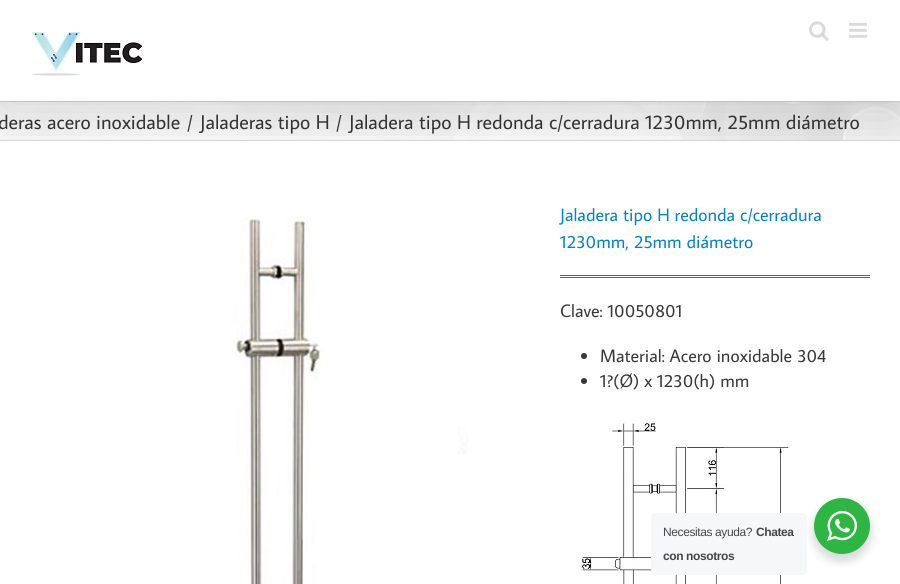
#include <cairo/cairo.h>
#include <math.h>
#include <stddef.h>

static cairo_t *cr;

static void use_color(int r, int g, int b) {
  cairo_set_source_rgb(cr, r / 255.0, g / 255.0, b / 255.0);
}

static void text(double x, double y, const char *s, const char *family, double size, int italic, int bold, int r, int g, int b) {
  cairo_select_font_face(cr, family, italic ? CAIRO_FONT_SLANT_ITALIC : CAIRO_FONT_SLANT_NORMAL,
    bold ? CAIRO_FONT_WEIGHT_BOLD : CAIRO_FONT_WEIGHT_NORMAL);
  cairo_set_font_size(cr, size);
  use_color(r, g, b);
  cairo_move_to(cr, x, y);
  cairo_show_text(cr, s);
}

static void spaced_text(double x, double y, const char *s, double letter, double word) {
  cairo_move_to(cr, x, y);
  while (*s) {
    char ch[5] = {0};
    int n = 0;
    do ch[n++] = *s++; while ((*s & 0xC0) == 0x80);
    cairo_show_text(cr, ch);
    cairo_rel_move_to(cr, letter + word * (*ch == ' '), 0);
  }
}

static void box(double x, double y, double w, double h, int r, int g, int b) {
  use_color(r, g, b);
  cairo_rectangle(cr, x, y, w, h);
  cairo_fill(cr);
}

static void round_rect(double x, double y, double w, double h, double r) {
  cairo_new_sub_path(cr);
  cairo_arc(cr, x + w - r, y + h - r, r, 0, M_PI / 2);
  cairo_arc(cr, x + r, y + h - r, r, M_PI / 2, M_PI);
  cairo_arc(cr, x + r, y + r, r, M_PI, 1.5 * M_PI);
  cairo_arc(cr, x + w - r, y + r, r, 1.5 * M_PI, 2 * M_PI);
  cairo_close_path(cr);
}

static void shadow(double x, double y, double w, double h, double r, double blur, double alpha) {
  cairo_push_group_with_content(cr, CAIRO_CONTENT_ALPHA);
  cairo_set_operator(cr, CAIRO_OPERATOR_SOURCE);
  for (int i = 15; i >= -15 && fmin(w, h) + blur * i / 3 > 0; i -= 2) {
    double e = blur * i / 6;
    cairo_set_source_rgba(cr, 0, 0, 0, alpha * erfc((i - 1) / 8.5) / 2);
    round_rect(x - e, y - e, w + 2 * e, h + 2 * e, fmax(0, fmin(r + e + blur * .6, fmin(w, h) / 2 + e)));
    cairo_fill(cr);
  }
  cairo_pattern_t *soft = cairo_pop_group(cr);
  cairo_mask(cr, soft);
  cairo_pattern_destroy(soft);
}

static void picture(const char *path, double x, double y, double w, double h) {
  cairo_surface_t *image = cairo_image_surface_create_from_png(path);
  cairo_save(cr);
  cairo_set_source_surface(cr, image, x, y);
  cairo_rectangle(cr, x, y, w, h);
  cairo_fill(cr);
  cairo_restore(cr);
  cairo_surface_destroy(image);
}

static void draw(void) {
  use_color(255, 255, 255);
  cairo_paint(cr);
  box(0, 102, 900, 38, 246, 246, 246);
  picture("img_04.png", 0, 102, 900, 38);
  box(0, 101, 900, 1, 210, 211, 212);
  box(0, 140, 900, 1, 210, 211, 212);
  cairo_save(cr);
  cairo_rectangle(cr, 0, 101, 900, 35);
  cairo_clip(cr);
  use_color(0, 0, 0);
  shadow(2, 12, 896, 97, 0, 25, 0.14);
  cairo_restore(cr);
  picture("img_01.png", 31, 27, 111, 49);
  picture("img_02.png", 809, 21, 20, 20);
  picture("img_03.png", 849, 22, 18, 16);
  picture("img_05.png", 230, 216, 238, 368);
  box(560, 275, 310, 1, 0, 130, 207);
  box(560, 277, 310, 1, 0, 130, 207);
  use_color(54, 56, 57);
  cairo_arc(cr, 584, 356, 3, 0, 2 * M_PI);
  cairo_fill(cr);
  cairo_arc(cr, 584, 381, 3, 0, 2 * M_PI);
  cairo_fill(cr);
  picture("img_06.png", 577, 420, 213, 164);
  use_color(0, 0, 0);
  shadow(812, 502, 60, 60, 30, 4, 0.14);
  use_color(245, 247, 249);
  round_rect(651, 513, 156, 62, 4);
  cairo_fill(cr);
  use_color(45, 183, 66);
  cairo_arc(cr, 842, 526, 28, 0, 2 * M_PI);
  cairo_fill(cr);
  picture("img_07.png", 827, 511, 30, 30);
  text(-2, 129, "deras acero inoxidable", "Average Sans", 20, 0, 0, 51, 51, 51);
  text(187, 129, "/", "Average Sans", 20, 0, 0, 51, 51, 51);
  text(200, 129, "Jaladeras tipo H", "Average Sans", 20, 0, 0, 51, 51, 51);
  text(336, 129, "/", "Average Sans", 20, 0, 0, 51, 51, 51);
  text(349, 129, "Jaladera tipo H redonda c/cerradura 1230mm, 25mm diámetro", "Average Sans", 20, 0, 0, 51, 51, 51);
  text(560, 221, "Jaladera tipo H redonda c/cerradura", "Average Sans", 18, 0, 0, 0, 130, 207);
  text(560, 248, "1230mm, 25mm diámetro", "Average Sans", 18, 0, 0, 0, 130, 207);
  text(560, 317, "Clave: 10050801", "Average Sans", 18, 0, 0, 54, 56, 57);
  text(600, 362, "Material: Acero inoxidable 304", "Average Sans", 18, 0, 0, 54, 56, 57);
  text(600, 387, "1?(Ø) x 1230(h) mm", "Average Sans", 18, 0, 0, 54, 56, 57);
  cairo_select_font_face(cr, "Liberation Sans", CAIRO_FONT_SLANT_NORMAL, CAIRO_FONT_WEIGHT_NORMAL);
  cairo_set_font_size(cr, 12);
  use_color(67, 71, 78);
  spaced_text(663, 536, "Necesitas ayuda?", -0.4, 0);
  cairo_select_font_face(cr, "Liberation Sans", CAIRO_FONT_SLANT_NORMAL, CAIRO_FONT_WEIGHT_BOLD);
  spaced_text(756, 536, "Chatea", -0.4, 0);
  spaced_text(663, 560, "con nosotros", -0.4, 0);
}

int main(void) {
  cairo_surface_t *surface = cairo_image_surface_create(CAIRO_FORMAT_RGB24, 900, 584);
  cr = cairo_create(surface);
  cairo_font_options_t *options = cairo_font_options_create();
  cairo_font_options_set_hint_metrics(options, CAIRO_HINT_METRICS_OFF);
  cairo_font_options_set_hint_style(options, CAIRO_HINT_STYLE_NONE);
  cairo_set_font_options(cr, options);
  cairo_set_miter_limit(cr, 4);
  draw();
  cairo_surface_write_to_png(surface, "out.png");
  cairo_font_options_destroy(options);
  cairo_destroy(cr);
  cairo_surface_destroy(surface);
  return 0;
}
